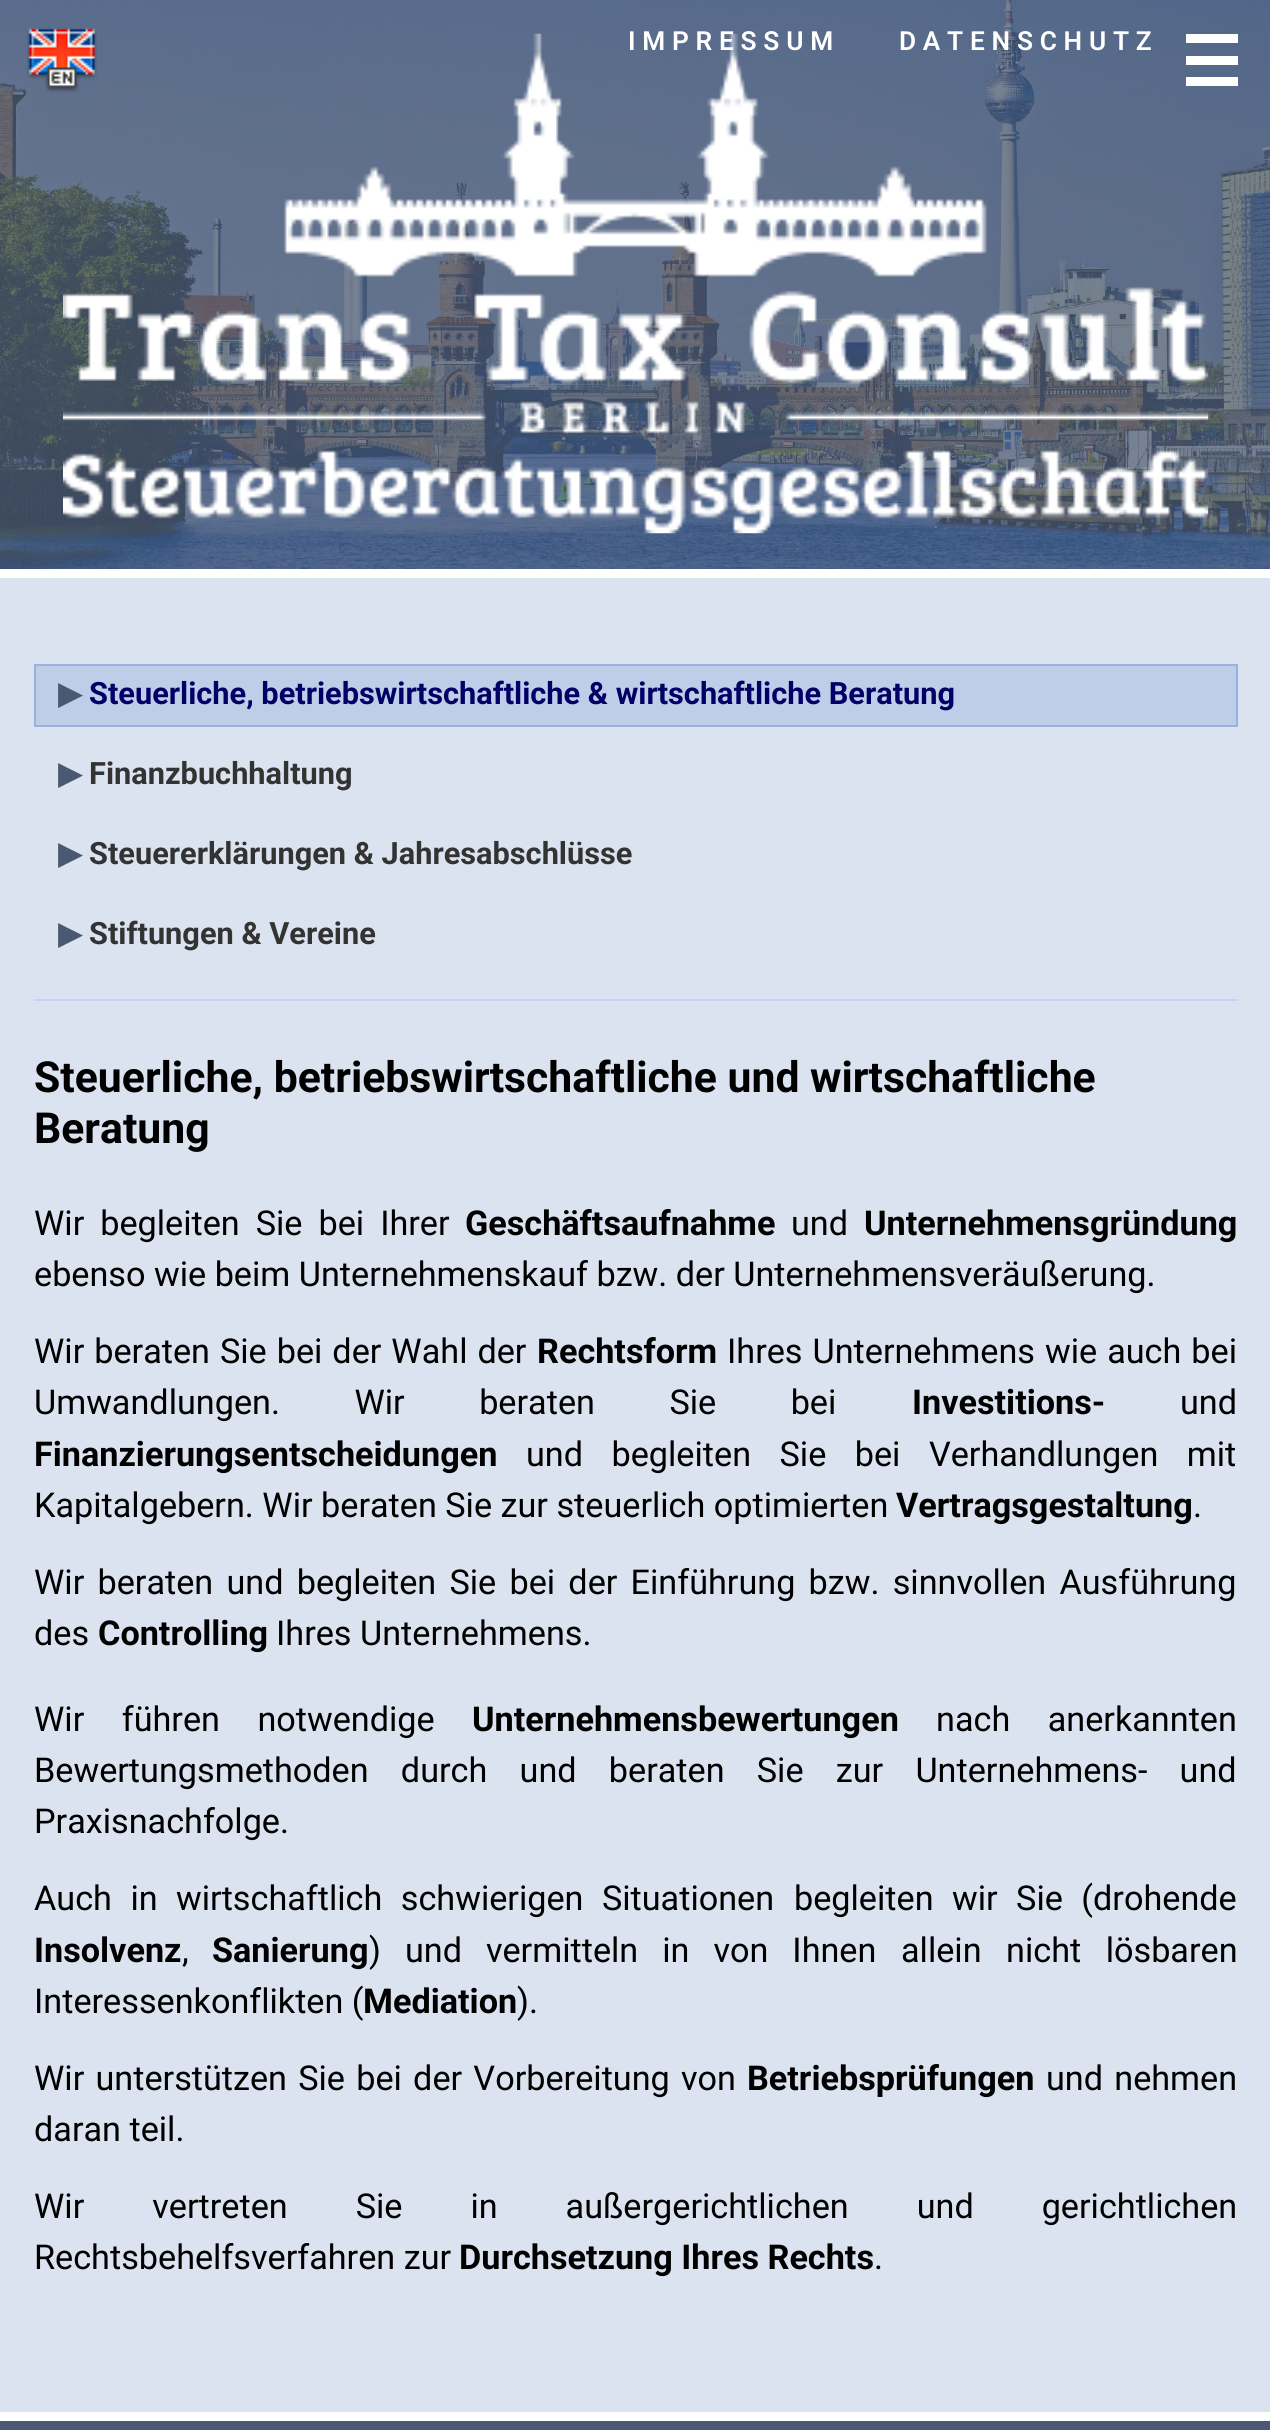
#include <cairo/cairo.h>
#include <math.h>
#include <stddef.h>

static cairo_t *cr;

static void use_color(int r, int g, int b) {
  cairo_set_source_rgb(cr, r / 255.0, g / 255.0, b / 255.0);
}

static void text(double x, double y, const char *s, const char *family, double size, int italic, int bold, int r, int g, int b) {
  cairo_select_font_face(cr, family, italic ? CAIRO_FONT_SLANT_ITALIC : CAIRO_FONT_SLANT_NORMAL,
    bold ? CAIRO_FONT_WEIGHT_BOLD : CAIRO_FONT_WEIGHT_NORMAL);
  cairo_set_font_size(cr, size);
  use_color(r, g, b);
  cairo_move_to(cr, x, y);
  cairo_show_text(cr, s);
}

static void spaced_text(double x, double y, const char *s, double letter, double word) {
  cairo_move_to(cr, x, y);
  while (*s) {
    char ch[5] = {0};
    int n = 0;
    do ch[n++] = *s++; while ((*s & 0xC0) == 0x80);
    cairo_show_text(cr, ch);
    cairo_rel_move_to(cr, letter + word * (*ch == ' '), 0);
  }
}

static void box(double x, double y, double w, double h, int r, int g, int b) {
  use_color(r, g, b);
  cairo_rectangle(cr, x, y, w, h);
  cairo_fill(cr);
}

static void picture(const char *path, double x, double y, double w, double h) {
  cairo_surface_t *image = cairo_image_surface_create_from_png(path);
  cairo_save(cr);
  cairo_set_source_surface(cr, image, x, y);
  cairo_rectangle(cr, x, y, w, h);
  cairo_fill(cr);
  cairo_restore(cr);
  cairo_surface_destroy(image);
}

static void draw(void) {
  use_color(74, 89, 113);
  cairo_paint(cr);
  picture("img_01.png", 0, 0, 1270, 569);
  picture("img_02.png", 63, 33, 1146, 501);
  picture("img_03.png", 27, 28, 70, 65);
  box(1186, 34, 52, 9, 255, 255, 255);
  box(1186, 56, 52, 9, 255, 255, 255);
  box(1186, 77, 52, 9, 255, 255, 255);
  box(0, 578, 1270, 1834, 218, 227, 239);
  box(0, 569, 1270, 9, 255, 255, 255);
  box(34, 999, 1204, 2, 204, 204, 255);
  use_color(191, 206, 232);
  cairo_rectangle(cr, 35, 665, 1202, 61);
  cairo_fill_preserve(cr);
  use_color(153, 177, 222);
  cairo_stroke(cr);
  box(0, 2412, 1270, 9, 255, 255, 255);
  cairo_select_font_face(cr, "Roboto SemiBold", CAIRO_FONT_SLANT_NORMAL, CAIRO_FONT_WEIGHT_NORMAL);
  cairo_set_font_size(cr, 26.25);
  spaced_text(628, 50, "IMPRESSUM", 6.75, 0);
  spaced_text(899, 50, "DATENSCHUTZ", 6.75, 0);
  text(58, 704, "▶", "DejaVu Sans", 30.75, 0, 1, 74, 89, 113);
  text(89, 704, "Steuerliche, betriebswirtschaftliche & wirtschaftliche Beratung", "Roboto", 30.75, 0, 1, 0, 0, 102);
  text(58, 784, "▶", "DejaVu Sans", 30.75, 0, 1, 74, 89, 113);
  text(89, 784, "Finanzbuchhaltung", "Roboto", 30.75, 0, 1, 51, 51, 51);
  text(58, 864, "▶", "DejaVu Sans", 30.75, 0, 1, 74, 89, 113);
  text(89, 864, "Steuererklärungen & Jahresabschlüsse", "Roboto", 30.75, 0, 1, 51, 51, 51);
  text(58, 944, "▶", "DejaVu Sans", 30.75, 0, 1, 74, 89, 113);
  text(89, 944, "Stiftungen & Vereine", "Roboto", 30.75, 0, 1, 51, 51, 51);
  text(34, 1092, "Steuerliche, betriebswirtschaftliche und wirtschaftliche", "Roboto", 42.75, 0, 1, 0, 0, 0);
  text(34, 1143, "Beratung", "Roboto", 42.75, 0, 1, 0, 0, 0);
  cairo_select_font_face(cr, "Roboto", CAIRO_FONT_SLANT_NORMAL, CAIRO_FONT_WEIGHT_NORMAL);
  cairo_set_font_size(cr, 34.2);
  spaced_text(34, 1235, "Wir begleiten Sie bei Ihrer", 0, 7.5);
  text(465, 1235, "Geschäftsaufnahme", "Roboto", 34.2, 0, 1, 0, 0, 0);
  text(791, 1235, "und", "Roboto", 34.2, 0, 0, 0, 0, 0);
  text(864, 1235, "Unternehmensgründung", "Roboto", 34.2, 0, 1, 0, 0, 0);
  text(34, 1286, "ebenso wie beim Unternehmenskauf bzw. der Unternehmensveräußerung.", "Roboto", 34.2, 0, 0, 0, 0, 0);
  spaced_text(34, 1363, "Wir beraten Sie bei der Wahl der", 0, 1.5);
  text(537, 1363, "Rechtsform", "Roboto", 34.2, 0, 1, 0, 0, 0);
  cairo_select_font_face(cr, "Roboto", CAIRO_FONT_SLANT_NORMAL, CAIRO_FONT_WEIGHT_NORMAL);
  spaced_text(727, 1363, "Ihres Unternehmens wie auch bei", 0, 1.5);
  spaced_text(34, 1414, "Umwandlungen. Wir beraten Sie bei", 0, 66);
  text(912, 1414, "Investitions-", "Roboto", 34.2, 0, 1, 0, 0, 0);
  text(1180, 1414, "und", "Roboto", 34.2, 0, 0, 0, 0, 0);
  text(34, 1466, "Finanzierungsentscheidungen", "Roboto", 34.2, 0, 1, 0, 0, 0);
  cairo_select_font_face(cr, "Roboto", CAIRO_FONT_SLANT_NORMAL, CAIRO_FONT_WEIGHT_NORMAL);
  spaced_text(526, 1466, "und begleiten Sie bei Verhandlungen mit", 0, 20);
  text(34, 1517, "Kapitalgebern. Wir beraten Sie zur steuerlich optimierten", "Roboto", 34.2, 0, 0, 0, 0, 0);
  text(896, 1517, "Vertragsgestaltung", "Roboto", 34.2, 0, 1, 0, 0, 0);
  text(1193, 1517, ".", "Roboto", 34.2, 0, 0, 0, 0, 0);
  spaced_text(34, 1594, "Wir beraten und begleiten Sie bei der Einführung bzw. sinnvollen Ausführung", 0, 4.75);
  text(34, 1645, "des", "Roboto", 34.2, 0, 0, 0, 0, 0);
  text(98, 1645, "Controlling", "Roboto", 34.2, 0, 1, 0, 0, 0);
  text(276, 1645, "Ihres Unternehmens.", "Roboto", 34.2, 0, 0, 0, 0, 0);
  spaced_text(34, 1731, "Wir führen notwendige", 0, 29);
  text(472, 1731, "Unternehmensbewertungen", "Roboto", 34.2, 0, 1, 0, 0, 0);
  cairo_select_font_face(cr, "Roboto", CAIRO_FONT_SLANT_NORMAL, CAIRO_FONT_WEIGHT_NORMAL);
  spaced_text(936, 1731, "nach anerkannten", 0, 29);
  spaced_text(34, 1782, "Bewertungsmethoden durch und beraten Sie zur Unternehmens- und", 0, 23.75);
  text(34, 1833, "Praxisnachfolge.", "Roboto", 34.2, 0, 0, 0, 0, 0);
  spaced_text(34, 1910, "Auch in wirtschaftlich schwierigen Situationen", 0, 10);
  spaced_text(794, 1910, "begleiten wir Sie (drohende", 0, 10);
  text(34, 1962, "Insolvenz", "Roboto", 34.2, 0, 1, 0, 0, 0);
  text(182, 1962, ",", "Roboto", 34.2, 0, 0, 0, 0, 0);
  text(212, 1962, "Sanierung", "Roboto", 34.2, 0, 1, 0, 0, 0);
  cairo_select_font_face(cr, "Roboto", CAIRO_FONT_SLANT_NORMAL, CAIRO_FONT_WEIGHT_NORMAL);
  spaced_text(369, 1962, ") und vermitteln in von Ihnen", 0, 15.5);
  spaced_text(901, 1962, "allein nicht lösbaren", 0, 16);
  text(34, 2013, "Interessenkonflikten (", "Roboto", 34.2, 0, 0, 0, 0, 0);
  text(363, 2013, "Mediation", "Roboto", 34.2, 0, 1, 0, 0, 0);
  text(517, 2013, ").", "Roboto", 34.2, 0, 0, 0, 0, 0);
  spaced_text(34, 2090, "Wir unterstützen Sie bei der Vorbereitung von", 0, 2.75);
  text(747, 2090, "Betriebsprüfungen", "Roboto", 34.2, 0, 1, 0, 0, 0);
  cairo_select_font_face(cr, "Roboto", CAIRO_FONT_SLANT_NORMAL, CAIRO_FONT_WEIGHT_NORMAL);
  spaced_text(1046, 2090, "und nehmen", 0, 2.75);
  text(34, 2141, "daran teil.", "Roboto", 34.2, 0, 0, 0, 0, 0);
  spaced_text(34, 2218, "Wir vertreten Sie in außergerichtlichen und gerichtlichen", 0, 59.5);
  text(34, 2269, "Rechtsbehelfsverfahren zur", "Roboto", 34.2, 0, 0, 0, 0, 0);
  text(459, 2269, "Durchsetzung Ihres Rechts", "Roboto", 34.2, 0, 1, 0, 0, 0);
  text(874, 2269, ".", "Roboto", 34.2, 0, 0, 0, 0, 0);
}

int main(void) {
  cairo_surface_t *surface = cairo_image_surface_create(CAIRO_FORMAT_RGB24, 1270, 2430);
  cr = cairo_create(surface);
  cairo_font_options_t *options = cairo_font_options_create();
  cairo_font_options_set_hint_metrics(options, CAIRO_HINT_METRICS_OFF);
  cairo_font_options_set_hint_style(options, CAIRO_HINT_STYLE_NONE);
  cairo_set_font_options(cr, options);
  cairo_set_miter_limit(cr, 4);
  draw();
  cairo_surface_write_to_png(surface, "out.png");
  cairo_font_options_destroy(options);
  cairo_destroy(cr);
  cairo_surface_destroy(surface);
  return 0;
}
